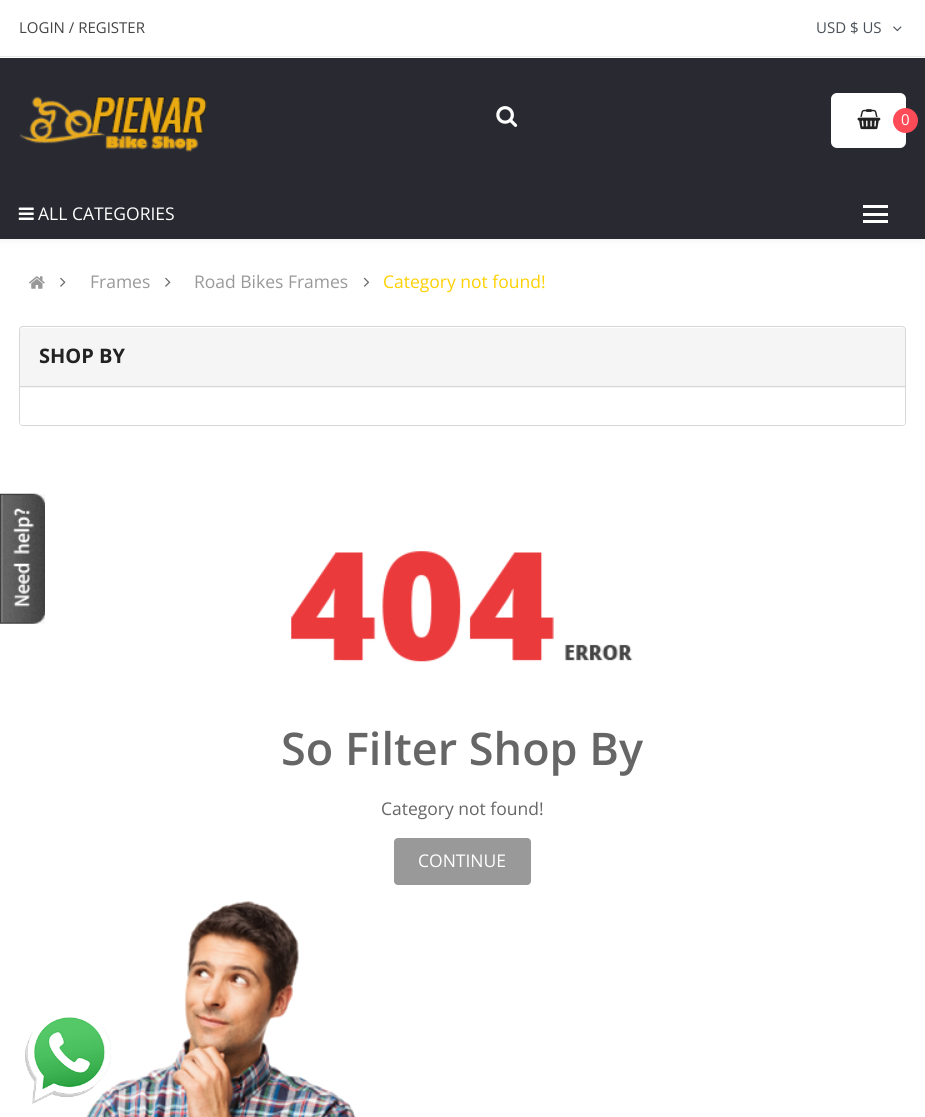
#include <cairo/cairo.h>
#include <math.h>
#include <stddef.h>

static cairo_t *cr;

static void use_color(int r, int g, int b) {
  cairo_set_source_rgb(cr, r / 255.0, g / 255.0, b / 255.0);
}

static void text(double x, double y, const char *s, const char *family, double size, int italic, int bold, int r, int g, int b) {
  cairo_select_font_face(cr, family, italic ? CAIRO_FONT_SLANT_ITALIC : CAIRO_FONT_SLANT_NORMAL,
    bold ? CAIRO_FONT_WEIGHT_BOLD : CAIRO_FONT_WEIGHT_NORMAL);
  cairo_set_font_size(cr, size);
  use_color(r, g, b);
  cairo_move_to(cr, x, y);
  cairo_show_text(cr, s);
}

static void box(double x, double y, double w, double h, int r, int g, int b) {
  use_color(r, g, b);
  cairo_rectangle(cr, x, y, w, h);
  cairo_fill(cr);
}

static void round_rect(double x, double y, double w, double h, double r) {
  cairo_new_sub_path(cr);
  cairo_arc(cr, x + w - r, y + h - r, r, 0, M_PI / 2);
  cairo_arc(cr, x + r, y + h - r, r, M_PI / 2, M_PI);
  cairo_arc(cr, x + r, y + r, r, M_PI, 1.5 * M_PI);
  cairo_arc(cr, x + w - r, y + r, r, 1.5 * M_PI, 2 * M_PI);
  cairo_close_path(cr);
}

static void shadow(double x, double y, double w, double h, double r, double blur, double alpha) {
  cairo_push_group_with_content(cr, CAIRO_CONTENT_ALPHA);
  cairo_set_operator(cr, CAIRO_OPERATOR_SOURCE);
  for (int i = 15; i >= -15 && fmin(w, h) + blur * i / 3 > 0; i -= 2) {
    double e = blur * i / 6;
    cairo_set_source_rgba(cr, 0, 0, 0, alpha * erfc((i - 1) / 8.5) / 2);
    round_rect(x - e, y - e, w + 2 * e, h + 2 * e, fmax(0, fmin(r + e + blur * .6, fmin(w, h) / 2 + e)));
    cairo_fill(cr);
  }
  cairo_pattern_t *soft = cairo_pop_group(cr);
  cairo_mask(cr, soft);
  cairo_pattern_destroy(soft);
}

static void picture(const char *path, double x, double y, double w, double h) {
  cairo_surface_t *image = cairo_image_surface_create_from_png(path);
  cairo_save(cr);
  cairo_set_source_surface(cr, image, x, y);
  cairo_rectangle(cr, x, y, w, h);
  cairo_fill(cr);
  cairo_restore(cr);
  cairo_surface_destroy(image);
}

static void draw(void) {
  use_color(255, 255, 255);
  cairo_paint(cr);
  use_color(0, 0, 0);
  shadow(0, 0, 925, 239, 0, 4.5, 0.07);
  box(0, 58, 925, 181, 41, 41, 49);
  box(0, 0, 925, 58, 255, 255, 255);
  box(0, 56, 925, 1, 233, 233, 233);
  picture("img_01.png", 893, 26, 9, 6);
  picture("img_02.png", 19, 96, 188, 56);
  picture("img_03.png", 496, 106, 22, 21);
  use_color(255, 255, 255);
  round_rect(831, 93, 75, 55, 6);
  cairo_fill(cr);
  picture("img_04.png", 857, 109, 24, 21);
  use_color(255, 75, 88);
  cairo_arc(cr, 905.5, 120.5, 12.5, 0, 2 * M_PI);
  cairo_fill(cr);
  picture("img_05.png", 18, 207, 16, 13);
  box(863, 205, 25, 3, 255, 255, 255);
  box(863, 213, 25, 3, 255, 255, 255);
  box(863, 220, 25, 3, 255, 255, 255);
  picture("img_06.png", 29, 276, 16, 13);
  picture("img_07.png", 60, 277, 6, 10);
  picture("img_07.png", 165, 277, 6, 10);
  picture("img_08.png", 363, 277, 7, 10);
  round_rect(19.5, 326.5, 886, 99, 3.5);
  use_color(215, 215, 215);
  cairo_set_line_width(cr, 1);
  cairo_stroke(cr);
  use_color(245, 245, 245);
  cairo_new_path(cr);
  cairo_move_to(cr, 22.5, 328);
  cairo_line_to(cr, 902.5, 328);
  cairo_curve_to(cr, 904, 328, 905, 329, 905, 330.5);
  cairo_line_to(cr, 905, 388);
  cairo_line_to(cr, 20, 388);
  cairo_line_to(cr, 20, 330.5);
  cairo_curve_to(cr, 20, 329, 21, 328, 22.5, 328);
  cairo_close_path(cr);
  cairo_fill(cr);
  box(20, 386, 885, 1, 215, 215, 215);
  use_color(255, 255, 255);
  cairo_new_path(cr);
  cairo_move_to(cr, 20, 388);
  cairo_line_to(cr, 905, 388);
  cairo_line_to(cr, 905, 422.5);
  cairo_curve_to(cr, 905, 424, 904, 425, 902.5, 425);
  cairo_line_to(cr, 22.5, 425);
  cairo_curve_to(cr, 21, 425, 20, 424, 20, 422.5);
  cairo_close_path(cr);
  cairo_fill(cr);
  picture("img_09.png", 291, 551, 342, 111);
  use_color(153, 153, 153);
  round_rect(394, 838, 137, 47, 4);
  cairo_fill(cr);
  picture("img_10.png", 86, 901, 270, 216);
  picture("img_11.png", 25, 1017, 86, 87);
  picture("img_12.png", 0, 493, 45, 131);
  text(19, 33, "LOGIN / REGISTER", "Open Sans", 15, 0, 0, 68, 68, 68);
  text(816, 33, "USD $ US", "Open Sans", 15, 0, 0, 73, 80, 87);
  text(901, 125, "0", "Open Sans", 15, 0, 0, 255, 255, 255);
  text(38, 220, "ALL CATEGORIES", "Open Sans", 17.5, 0, 0, 255, 255, 255);
  text(90, 288, "Frames", "Open Sans", 17.5, 0, 0, 153, 153, 153);
  text(194, 288, "Road Bikes Frames", "Open Sans", 17.5, 0, 0, 153, 153, 153);
  text(383, 288, "Category not found!", "Open Sans", 17.5, 0, 0, 255, 208, 0);
  text(39, 363, "SHOP BY", "Open Sans", 20, 0, 1, 34, 34, 34);
  text(281, 765, "So Filter Shop By", "Open Sans SemiBold", 45, 0, 0, 102, 102, 102);
  text(381, 815, "Category not found!", "Open Sans", 17.5, 0, 0, 102, 102, 102);
  text(418, 867, "CONTINUE", "Open Sans", 17.5, 0, 0, 255, 255, 255);
}

int main(void) {
  cairo_surface_t *surface = cairo_image_surface_create(CAIRO_FORMAT_RGB24, 925, 1117);
  cr = cairo_create(surface);
  cairo_font_options_t *options = cairo_font_options_create();
  cairo_font_options_set_hint_metrics(options, CAIRO_HINT_METRICS_OFF);
  cairo_font_options_set_hint_style(options, CAIRO_HINT_STYLE_NONE);
  cairo_set_font_options(cr, options);
  cairo_set_miter_limit(cr, 4);
  draw();
  cairo_surface_write_to_png(surface, "out.png");
  cairo_font_options_destroy(options);
  cairo_destroy(cr);
  cairo_surface_destroy(surface);
  return 0;
}
